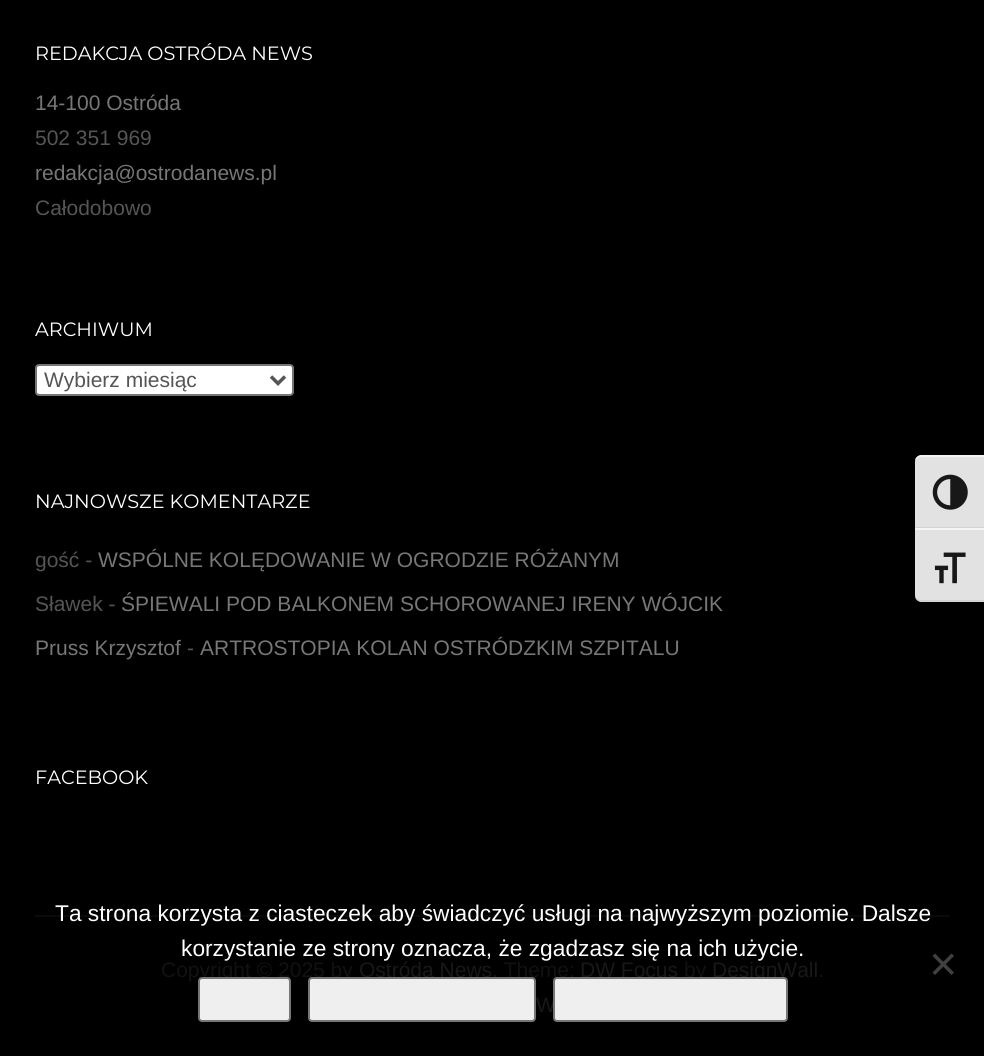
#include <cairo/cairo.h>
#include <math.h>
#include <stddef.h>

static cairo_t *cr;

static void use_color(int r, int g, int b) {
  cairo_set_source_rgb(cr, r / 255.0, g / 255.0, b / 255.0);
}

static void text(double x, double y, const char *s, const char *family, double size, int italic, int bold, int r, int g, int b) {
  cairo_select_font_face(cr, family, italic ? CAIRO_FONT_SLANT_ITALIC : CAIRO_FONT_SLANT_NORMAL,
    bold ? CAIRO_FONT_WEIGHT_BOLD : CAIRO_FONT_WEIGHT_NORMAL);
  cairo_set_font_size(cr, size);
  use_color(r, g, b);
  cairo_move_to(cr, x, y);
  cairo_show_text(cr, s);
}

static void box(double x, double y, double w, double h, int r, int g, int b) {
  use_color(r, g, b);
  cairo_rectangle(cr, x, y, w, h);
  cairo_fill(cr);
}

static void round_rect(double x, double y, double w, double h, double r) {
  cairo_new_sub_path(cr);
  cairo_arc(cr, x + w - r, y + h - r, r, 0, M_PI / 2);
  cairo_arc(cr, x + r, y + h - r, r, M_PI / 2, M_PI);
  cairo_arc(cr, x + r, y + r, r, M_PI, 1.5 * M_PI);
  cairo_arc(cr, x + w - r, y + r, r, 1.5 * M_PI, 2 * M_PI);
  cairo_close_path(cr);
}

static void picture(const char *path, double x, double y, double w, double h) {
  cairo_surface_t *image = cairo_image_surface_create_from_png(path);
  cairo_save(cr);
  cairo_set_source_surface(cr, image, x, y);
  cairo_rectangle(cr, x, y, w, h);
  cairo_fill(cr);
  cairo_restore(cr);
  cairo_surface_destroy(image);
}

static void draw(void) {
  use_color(0, 0, 0);
  cairo_paint(cr);
  box(35, 915, 915, 2, 10, 10, 10);
  use_color(255, 255, 255);
  round_rect(36, 365, 257, 30, 3);
  cairo_fill_preserve(cr);
  use_color(118, 118, 118);
  cairo_stroke(cr);
  cairo_new_path(cr);
  cairo_move_to(cr, 271, 376.5);
  cairo_line_to(cr, 278, 383.5);
  cairo_line_to(cr, 285, 376.5);
  use_color(85, 85, 85);
  cairo_set_line_width(cr, 3.5);
  cairo_stroke(cr);
  use_color(226, 226, 226);
  cairo_new_path(cr);
  cairo_move_to(cr, 922, 455);
  cairo_line_to(cr, 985, 455);
  cairo_line_to(cr, 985, 529);
  cairo_line_to(cr, 915, 529);
  cairo_line_to(cr, 915, 462);
  cairo_curve_to(cr, 915, 458, 918, 455, 922, 455);
  cairo_close_path(cr);
  cairo_fill(cr);
  use_color(245, 245, 245);
  cairo_new_path(cr);
  cairo_move_to(cr, 922, 455);
  cairo_curve_to(cr, 919, 455, 915, 457, 915, 461);
  cairo_curve_to(cr, 916, 458, 919, 457, 922, 457);
  cairo_line_to(cr, 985, 457);
  cairo_line_to(cr, 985, 455);
  cairo_close_path(cr);
  cairo_fill(cr);
  box(915, 527, 69, 1, 210, 210, 210);
  picture("img_01.png", 932, 474, 36, 36);
  use_color(226, 226, 226);
  cairo_new_path(cr);
  cairo_move_to(cr, 915, 529);
  cairo_line_to(cr, 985, 529);
  cairo_line_to(cr, 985, 602);
  cairo_line_to(cr, 922, 602);
  cairo_curve_to(cr, 918, 602, 915, 599, 915, 595);
  cairo_close_path(cr);
  cairo_fill(cr);
  box(915, 528, 69, 2, 245, 245, 245);
  use_color(210, 210, 210);
  cairo_new_path(cr);
  cairo_move_to(cr, 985, 602);
  cairo_line_to(cr, 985, 600);
  cairo_line_to(cr, 922, 600);
  cairo_curve_to(cr, 919, 600, 916, 599, 915, 596);
  cairo_line_to(cr, 915, 597);
  cairo_curve_to(cr, 916, 600, 919, 602, 922, 602);
  cairo_close_path(cr);
  cairo_fill(cr);
  picture("img_02.png", 934, 552, 32, 32);
  use_color(64, 64, 64);
  cairo_new_path(cr);
  cairo_move_to(cr, 951.5, 953.5);
  cairo_line_to(cr, 954, 956);
  cairo_line_to(cr, 935, 975);
  cairo_line_to(cr, 932.5, 972.5);
  cairo_close_path(cr);
  cairo_fill(cr);
  cairo_new_path(cr);
  cairo_move_to(cr, 932.5, 956);
  cairo_line_to(cr, 935, 953.5);
  cairo_line_to(cr, 954, 972.5);
  cairo_line_to(cr, 951.5, 975);
  cairo_close_path(cr);
  cairo_fill(cr);
  text(35, 60, "REDAKCJA OSTRÓDA NEWS", "Montserrat", 19.25, 0, 0, 255, 255, 255);
  text(35, 110, "14-100 Ostróda", "Liberation Sans", 21, 0, 0, 119, 119, 119);
  text(35, 145, "502 351 969", "Liberation Sans", 21, 0, 0, 85, 85, 85);
  text(35, 180, "redakcja@ostrodanews.pl", "Liberation Sans", 21, 0, 0, 119, 119, 119);
  text(35, 215, "Całodobowo", "Liberation Sans", 21, 0, 0, 85, 85, 85);
  text(35, 336, "ARCHIWUM", "Montserrat", 19.25, 0, 0, 255, 255, 255);
  text(44, 387, "Wybierz miesiąc", "Liberation Sans", 21, 0, 0, 85, 85, 85);
  text(35, 508, "NAJNOWSZE KOMENTARZE", "Montserrat", 19.25, 0, 0, 255, 255, 255);
  text(35, 567, "gość -", "Liberation Sans", 21, 0, 0, 85, 85, 85);
  text(98, 567, "WSPÓLNE KOLĘDOWANIE W OGRODZIE RÓŻANYM", "Liberation Sans", 21, 0, 0, 119, 119, 119);
  text(35, 611, "Sławek -", "Liberation Sans", 21, 0, 0, 85, 85, 85);
  text(121, 611, "ŚPIEWALI POD BALKONEM SCHOROWANEJ IRENY WÓJCIK", "Liberation Sans", 21, 0, 0, 119, 119, 119);
  text(35, 655, "Pruss Krzysztof", "Liberation Sans", 21, 0, 0, 119, 119, 119);
  text(187, 655, "-", "Liberation Sans", 21, 0, 0, 85, 85, 85);
  text(200, 655, "ARTROSTOPIA KOLAN OSTRÓDZKIM SZPITALU", "Liberation Sans", 21, 0, 0, 119, 119, 119);
  text(35, 784, "FACEBOOK", "Montserrat", 19.25, 0, 0, 255, 255, 255);
  text(161, 977, "Copyright © 2025 by", "Liberation Sans", 21, 0, 0, 17, 17, 17);
  text(359, 977, "Ostróda News", "Liberation Sans", 21, 0, 0, 24, 24, 24);
  text(492, 977, ". Theme:", "Liberation Sans", 21, 0, 0, 17, 17, 17);
  text(580, 977, "DW Focus", "Liberation Sans", 21, 0, 0, 24, 24, 24);
  text(684, 977, "by", "Liberation Sans", 21, 0, 0, 17, 17, 17);
  text(712, 977, "DesignWall", "Liberation Sans", 21, 0, 0, 24, 24, 24);
  text(818, 977, ".", "Liberation Sans", 21, 0, 0, 17, 17, 17);
  text(536, 1012, "W", "Liberation Sans", 21, 0, 0, 24, 24, 24);
  text(55, 921, "Ta strona korzysta z ciasteczek aby świadczyć usługi na najwyższym poziomie. Dalsze", "Liberation Sans", 22.75, 0, 0, 255, 255, 255);
  text(181, 956, "korzystanie ze strony oznacza, że zgadzasz się na ich użycie.", "Liberation Sans", 22.75, 0, 0, 255, 255, 255);
  use_color(239, 239, 239);
  round_rect(199, 978, 91, 43, 3);
  cairo_fill_preserve(cr);
  use_color(118, 118, 118);
  cairo_set_line_width(cr, 2);
  cairo_stroke(cr);
  use_color(239, 239, 239);
  round_rect(309, 978, 226, 43, 3);
  cairo_fill_preserve(cr);
  use_color(118, 118, 118);
  cairo_stroke(cr);
  use_color(239, 239, 239);
  round_rect(554, 978, 233, 43, 3);
  cairo_fill_preserve(cr);
  use_color(118, 118, 118);
  cairo_stroke(cr);
}

int main(void) {
  cairo_surface_t *surface = cairo_image_surface_create(CAIRO_FORMAT_RGB24, 984, 1056);
  cr = cairo_create(surface);
  cairo_font_options_t *options = cairo_font_options_create();
  cairo_font_options_set_hint_metrics(options, CAIRO_HINT_METRICS_OFF);
  cairo_font_options_set_hint_style(options, CAIRO_HINT_STYLE_NONE);
  cairo_set_font_options(cr, options);
  cairo_set_miter_limit(cr, 4);
  draw();
  cairo_surface_write_to_png(surface, "out.png");
  cairo_font_options_destroy(options);
  cairo_destroy(cr);
  cairo_surface_destroy(surface);
  return 0;
}
